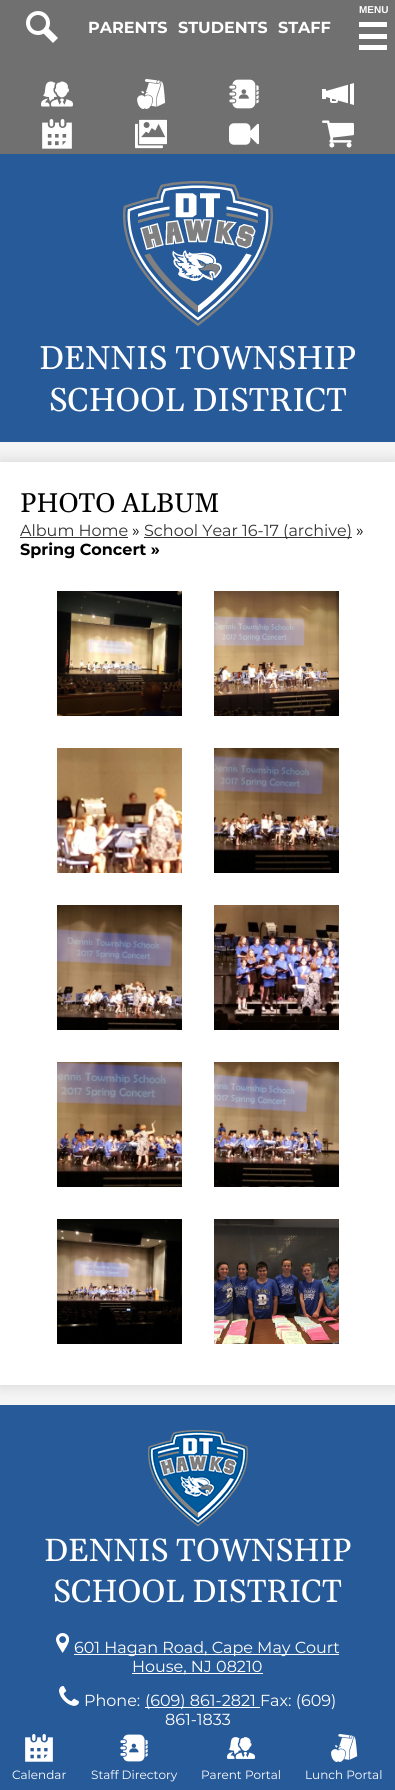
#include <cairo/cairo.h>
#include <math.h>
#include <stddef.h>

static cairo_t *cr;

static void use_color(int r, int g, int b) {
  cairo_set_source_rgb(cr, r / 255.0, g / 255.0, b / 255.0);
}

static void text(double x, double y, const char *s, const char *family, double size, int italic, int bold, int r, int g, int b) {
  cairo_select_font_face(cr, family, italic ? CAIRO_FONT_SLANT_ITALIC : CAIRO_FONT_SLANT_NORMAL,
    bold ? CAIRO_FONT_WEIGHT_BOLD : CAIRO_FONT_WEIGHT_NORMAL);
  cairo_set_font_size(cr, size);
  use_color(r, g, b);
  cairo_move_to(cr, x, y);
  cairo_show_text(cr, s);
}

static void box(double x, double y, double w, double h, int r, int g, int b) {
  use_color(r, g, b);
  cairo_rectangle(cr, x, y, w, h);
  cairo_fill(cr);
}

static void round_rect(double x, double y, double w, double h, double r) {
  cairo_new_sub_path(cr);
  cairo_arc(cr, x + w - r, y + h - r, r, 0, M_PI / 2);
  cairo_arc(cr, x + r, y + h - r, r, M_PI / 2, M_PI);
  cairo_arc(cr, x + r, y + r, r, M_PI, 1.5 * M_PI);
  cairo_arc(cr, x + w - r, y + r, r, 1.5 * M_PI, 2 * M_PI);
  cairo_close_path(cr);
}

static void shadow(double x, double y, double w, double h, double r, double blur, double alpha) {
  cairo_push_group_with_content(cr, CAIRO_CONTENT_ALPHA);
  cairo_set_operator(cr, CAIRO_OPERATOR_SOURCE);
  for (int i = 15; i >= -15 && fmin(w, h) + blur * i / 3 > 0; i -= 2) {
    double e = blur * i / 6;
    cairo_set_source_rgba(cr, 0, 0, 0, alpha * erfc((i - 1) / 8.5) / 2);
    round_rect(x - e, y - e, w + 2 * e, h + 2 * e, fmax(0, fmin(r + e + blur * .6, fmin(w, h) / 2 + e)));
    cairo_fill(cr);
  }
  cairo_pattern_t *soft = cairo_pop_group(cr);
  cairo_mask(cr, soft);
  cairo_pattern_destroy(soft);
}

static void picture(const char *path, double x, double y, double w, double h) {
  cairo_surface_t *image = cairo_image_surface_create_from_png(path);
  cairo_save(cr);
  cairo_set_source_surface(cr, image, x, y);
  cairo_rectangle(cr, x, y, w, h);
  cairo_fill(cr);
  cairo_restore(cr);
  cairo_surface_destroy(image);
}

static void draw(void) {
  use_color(245, 245, 245);
  cairo_paint(cr);
  box(0, 1405, 395, 385, 39, 90, 153);
  use_color(0, 0, 0);
  shadow(0, 462, 395, 923, 0, 7.5, 0.15);
  box(0, 154, 395, 288, 39, 90, 153);
  box(0, 0, 395, 154, 112, 112, 112);
  box(359, 22, 28, 5, 255, 255, 255);
  box(359, 34, 28, 5, 255, 255, 255);
  box(359, 45, 28, 5, 255, 255, 255);
  picture("img_01.png", 123, 181, 150, 145);
  picture("img_02.png", 26, 11, 32, 32);
  picture("img_03.png", 41, 81, 32, 26);
  picture("img_04.png", 137, 79, 29, 30);
  picture("img_05.png", 229, 79, 30, 30);
  picture("img_06.png", 322, 83, 32, 22);
  picture("img_07.png", 42, 119, 30, 30);
  picture("img_08.png", 135, 119, 32, 30);
  picture("img_09.png", 229, 123, 30, 22);
  picture("img_10.png", 322, 120, 32, 28);
  box(0, 462, 395, 923, 255, 255, 255);
  box(20, 537, 108, 1, 51, 51, 51);
  box(144, 537, 208, 1, 51, 51, 51);
  picture("img_11.png", 57, 591, 125, 125);
  picture("img_12.png", 214, 591, 125, 125);
  picture("img_13.png", 57, 748, 125, 125);
  picture("img_14.png", 214, 748, 125, 125);
  picture("img_15.png", 57, 905, 125, 125);
  picture("img_16.png", 214, 905, 125, 125);
  picture("img_17.png", 57, 1062, 125, 125);
  picture("img_18.png", 214, 1062, 125, 125);
  picture("img_19.png", 57, 1219, 125, 125);
  picture("img_20.png", 214, 1219, 125, 125);
  picture("img_21.png", 148, 1430, 100, 97);
  picture("img_22.png", 56, 1633, 13, 20);
  box(74, 1654, 265, 1, 255, 255, 255);
  box(132, 1673, 131, 1, 255, 255, 255);
  picture("img_23.png", 59, 1686, 20, 20);
  box(145, 1707, 115, 1, 255, 255, 255);
  picture("img_24.png", 25, 1734, 28, 28);
  picture("img_25.png", 120, 1734, 28, 28);
  picture("img_26.png", 227, 1737, 28, 22);
  picture("img_27.png", 331, 1734, 27, 28);
  text(359, 13, "MENU", "Liberation Sans", 10, 0, 1, 255, 255, 255);
  text(39, 369, "DENNIS TOWNSHIP", "Gelasio", 33, 0, 0, 255, 255, 255);
  text(49, 411, "SCHOOL DISTRICT", "Gelasio", 33, 0, 0, 255, 255, 255);
  text(88, 33, "PARENTS", "Montserrat", 16, 0, 1, 255, 255, 255);
  text(178, 33, "STUDENTS", "Montserrat", 16, 0, 1, 255, 255, 255);
  text(278, 33, "STAFF", "Montserrat", 16, 0, 1, 255, 255, 255);
  text(20, 512, "PHOTO ALBUM", "Gelasio", 27, 0, 0, 0, 0, 0);
  text(20, 536, "Album Home", "Montserrat", 16, 0, 0, 51, 51, 51);
  text(132, 536, "»", "Montserrat", 16, 0, 0, 0, 0, 0);
  text(144, 536, "School Year 16-17 (archive)", "Montserrat", 16, 0, 0, 51, 51, 51);
  text(356, 536, "»", "Montserrat", 16, 0, 0, 0, 0, 0);
  text(20, 555, "Spring Concert »", "Montserrat", 16, 0, 1, 0, 0, 0);
  text(44, 1561, "DENNIS TOWNSHIP", "Gelasio", 32, 0, 0, 255, 255, 255);
  text(53, 1602, "SCHOOL DISTRICT", "Gelasio", 32, 0, 0, 255, 255, 255);
  text(74, 1653, "601 Hagan Road, Cape May Court", "Montserrat", 16, 0, 0, 255, 255, 255);
  text(132, 1672, "House, NJ 08210", "Montserrat", 16, 0, 0, 255, 255, 255);
  text(84, 1706, "Phone:", "Montserrat", 16, 0, 0, 255, 255, 255);
  text(145, 1706, "(609) 861-2821 Fax: (609)", "Montserrat", 16, 0, 0, 255, 255, 255);
  text(165, 1725, "861-1833", "Montserrat", 16, 0, 0, 255, 255, 255);
  text(12, 1779, "Calendar", "Montserrat", 12, 0, 0, 255, 255, 255);
  text(91, 1779, "Staff Directory", "Montserrat", 12, 0, 0, 255, 255, 255);
  text(201, 1779, "Parent Portal", "Montserrat", 12, 0, 0, 255, 255, 255);
  text(305, 1779, "Lunch Portal", "Montserrat", 12, 0, 0, 255, 255, 255);
}

int main(void) {
  cairo_surface_t *surface = cairo_image_surface_create(CAIRO_FORMAT_RGB24, 395, 1790);
  cr = cairo_create(surface);
  cairo_font_options_t *options = cairo_font_options_create();
  cairo_font_options_set_hint_metrics(options, CAIRO_HINT_METRICS_OFF);
  cairo_font_options_set_hint_style(options, CAIRO_HINT_STYLE_NONE);
  cairo_set_font_options(cr, options);
  cairo_set_miter_limit(cr, 4);
  draw();
  cairo_surface_write_to_png(surface, "out.png");
  cairo_font_options_destroy(options);
  cairo_destroy(cr);
  cairo_surface_destroy(surface);
  return 0;
}
